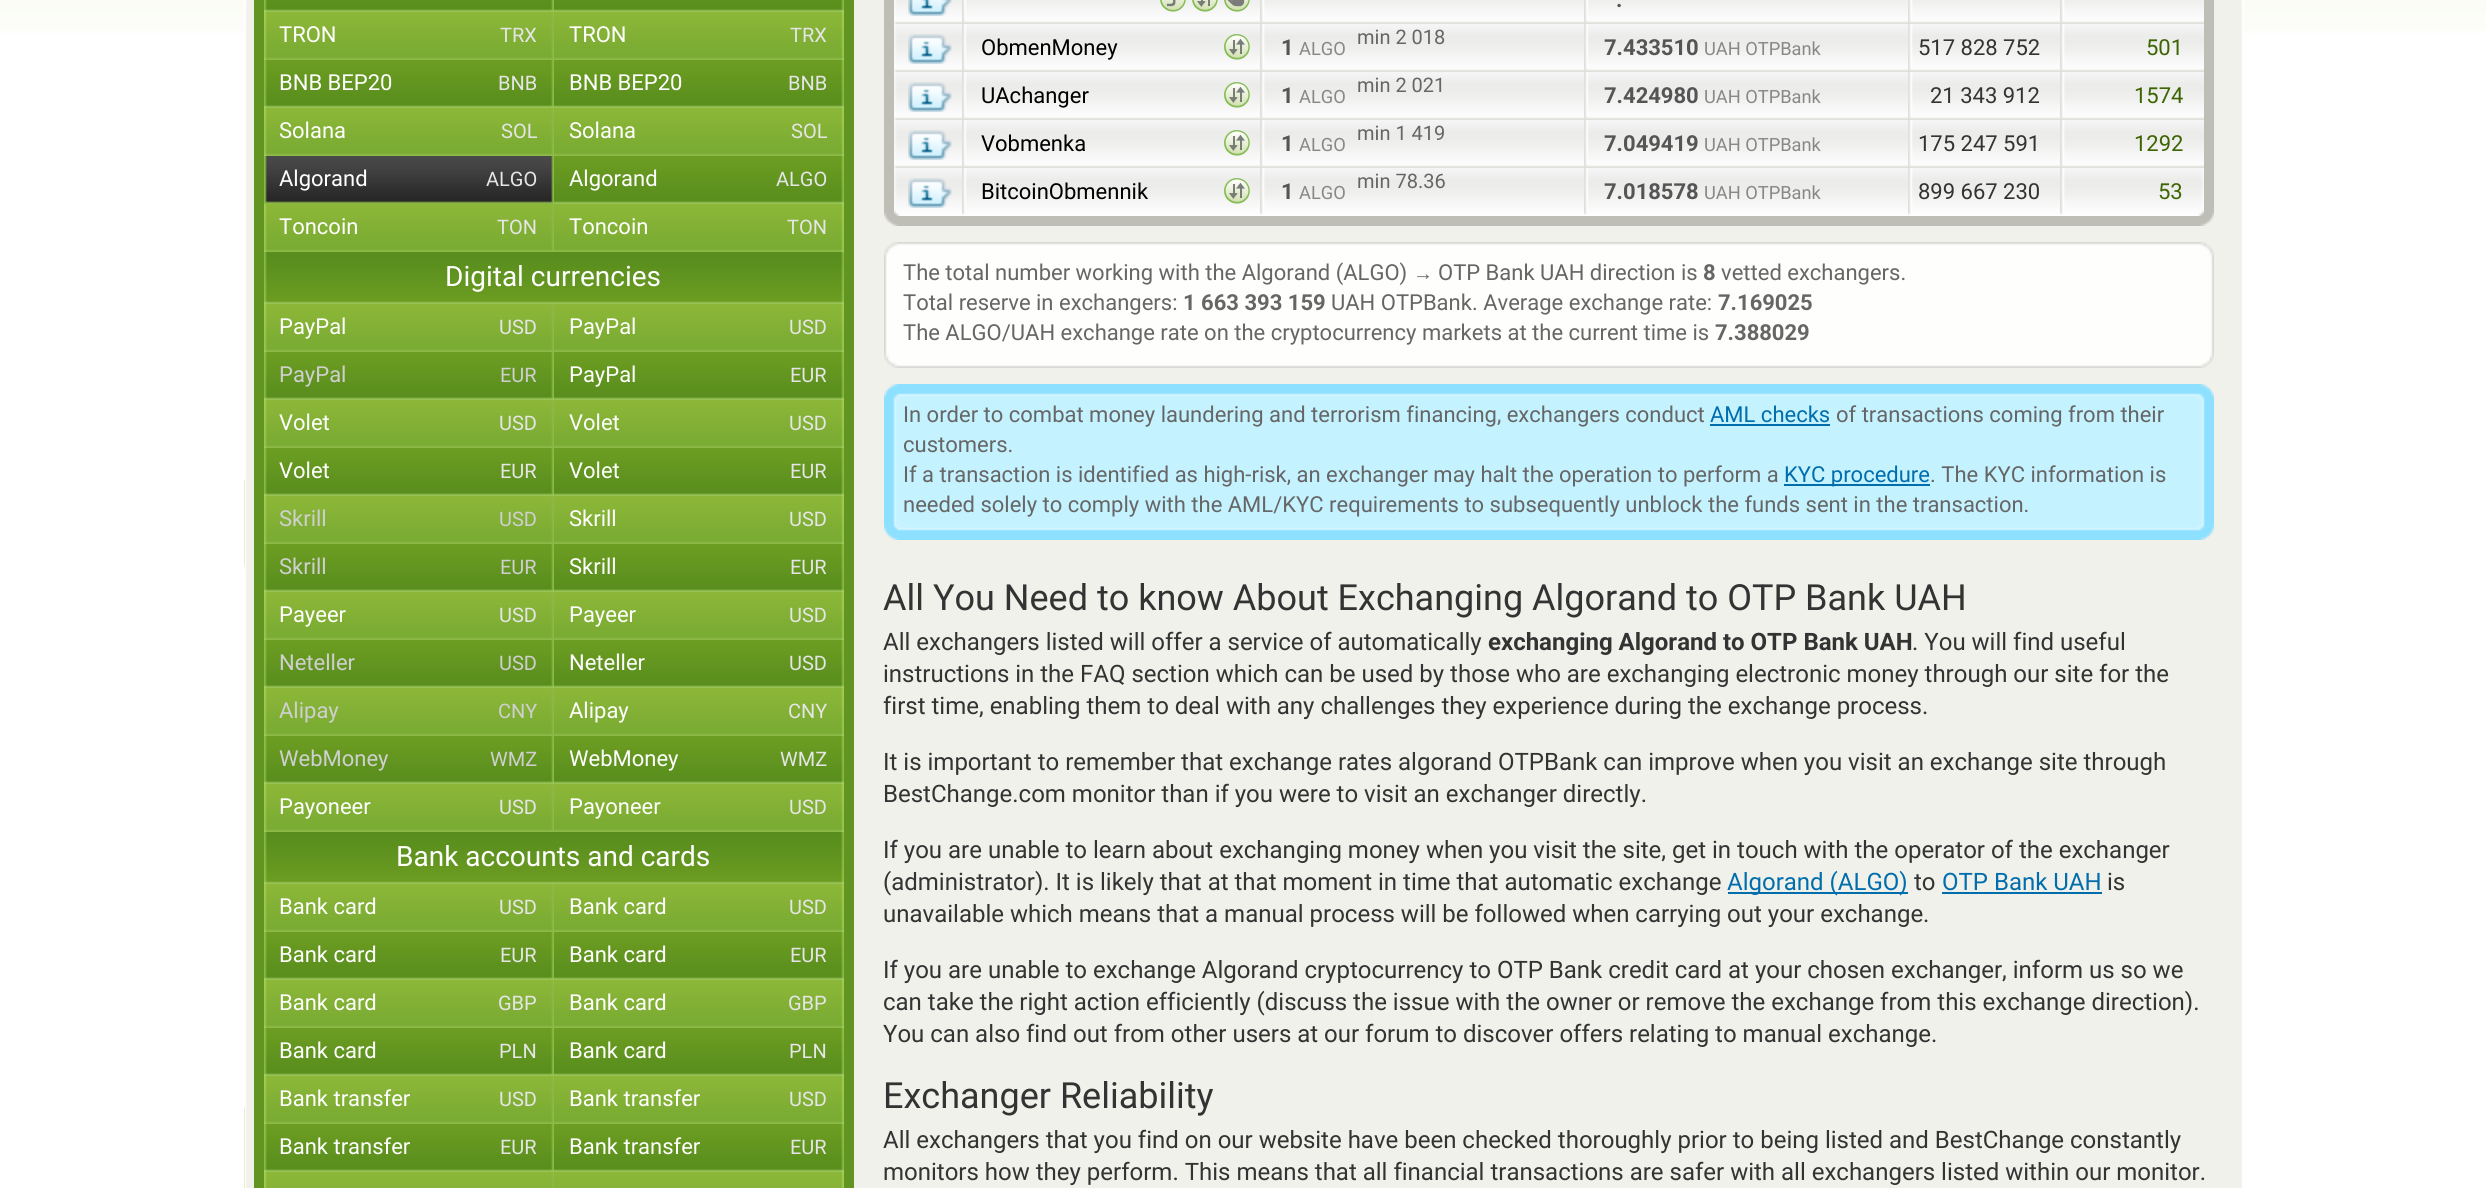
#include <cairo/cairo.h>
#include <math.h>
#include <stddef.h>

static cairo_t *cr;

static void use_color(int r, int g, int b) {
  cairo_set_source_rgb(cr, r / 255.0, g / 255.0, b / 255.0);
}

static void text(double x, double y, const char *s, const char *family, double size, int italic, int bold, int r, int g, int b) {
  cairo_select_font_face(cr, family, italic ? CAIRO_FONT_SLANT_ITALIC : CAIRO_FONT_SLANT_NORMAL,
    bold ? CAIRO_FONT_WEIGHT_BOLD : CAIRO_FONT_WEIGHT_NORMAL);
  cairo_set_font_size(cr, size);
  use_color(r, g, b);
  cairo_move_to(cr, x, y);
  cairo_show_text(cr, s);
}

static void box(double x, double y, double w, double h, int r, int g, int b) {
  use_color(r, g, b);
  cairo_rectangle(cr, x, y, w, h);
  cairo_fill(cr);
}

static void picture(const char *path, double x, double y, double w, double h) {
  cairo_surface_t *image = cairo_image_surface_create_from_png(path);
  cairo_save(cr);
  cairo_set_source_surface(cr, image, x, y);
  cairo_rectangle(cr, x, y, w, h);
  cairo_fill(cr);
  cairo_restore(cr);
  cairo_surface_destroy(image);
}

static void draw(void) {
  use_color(255, 255, 255);
  cairo_paint(cr);
  picture("img_01.png", 0, 0, 2486, 33);
  picture("img_02.png", 244, 0, 2000, 1188);
  box(254, 0, 600, 1188, 97, 148, 32);
  picture("img_03.png", 264, 0, 290, 12);
  picture("img_04.png", 554, 0, 290, 12);
  picture("img_05.png", 264, 12, 290, 48);
  picture("img_06.png", 554, 12, 290, 48);
  picture("img_07.png", 264, 60, 290, 48);
  picture("img_08.png", 554, 60, 290, 48);
  picture("img_05.png", 264, 108, 290, 48);
  picture("img_06.png", 554, 108, 290, 48);
  picture("img_09.png", 264, 156, 290, 48);
  picture("img_08.png", 554, 156, 290, 48);
  picture("img_05.png", 264, 204, 290, 48);
  picture("img_06.png", 554, 204, 290, 48);
  picture("img_10.png", 264, 252, 580, 52);
  picture("img_05.png", 264, 304, 290, 48);
  picture("img_06.png", 554, 304, 290, 48);
  picture("img_07.png", 264, 352, 290, 48);
  picture("img_08.png", 554, 352, 290, 48);
  picture("img_05.png", 264, 400, 290, 48);
  picture("img_06.png", 554, 400, 290, 48);
  picture("img_07.png", 264, 448, 290, 48);
  picture("img_08.png", 554, 448, 290, 48);
  picture("img_05.png", 264, 496, 290, 48);
  picture("img_06.png", 554, 496, 290, 48);
  picture("img_07.png", 264, 544, 290, 48);
  picture("img_08.png", 554, 544, 290, 48);
  picture("img_05.png", 264, 592, 290, 48);
  picture("img_06.png", 554, 592, 290, 48);
  picture("img_07.png", 264, 640, 290, 48);
  picture("img_08.png", 554, 640, 290, 48);
  picture("img_05.png", 264, 688, 290, 48);
  picture("img_06.png", 554, 688, 290, 48);
  picture("img_07.png", 264, 736, 290, 48);
  picture("img_08.png", 554, 736, 290, 48);
  picture("img_05.png", 264, 784, 290, 48);
  picture("img_06.png", 554, 784, 290, 48);
  picture("img_10.png", 264, 832, 580, 52);
  picture("img_05.png", 264, 884, 290, 48);
  picture("img_06.png", 554, 884, 290, 48);
  picture("img_07.png", 264, 932, 290, 48);
  picture("img_08.png", 554, 932, 290, 48);
  picture("img_05.png", 264, 980, 290, 48);
  picture("img_06.png", 554, 980, 290, 48);
  picture("img_07.png", 264, 1028, 290, 48);
  picture("img_08.png", 554, 1028, 290, 48);
  picture("img_05.png", 264, 1076, 290, 48);
  picture("img_06.png", 554, 1076, 290, 48);
  picture("img_07.png", 264, 1124, 290, 48);
  picture("img_08.png", 554, 1124, 290, 48);
  picture("img_11.png", 264, 1172, 290, 16);
  picture("img_12.png", 554, 1172, 290, 16);
  box(884, 0, 1330, 210, 190, 190, 183);
  picture("img_13.png", 894, 0, 68, 24);
  picture("img_14.png", 908, 0, 44, 16);
  picture("img_15.png", 962, 0, 298, 24);
  picture("img_16.png", 1160, 0, 26, 12);
  picture("img_17.png", 1192, 0, 26, 12);
  picture("img_18.png", 1224, 0, 26, 12);
  picture("img_19.png", 1260, 0, 324, 24);
  picture("img_20.png", 1584, 0, 324, 24);
  picture("img_21.png", 1908, 0, 152, 24);
  picture("img_22.png", 2060, 0, 144, 24);
  picture("img_23.png", 894, 24, 68, 48);
  picture("img_24.png", 908, 34, 44, 30);
  picture("img_25.png", 962, 24, 298, 48);
  picture("img_26.png", 1224, 34, 26, 26);
  picture("img_27.png", 1260, 24, 324, 48);
  picture("img_28.png", 1584, 24, 324, 48);
  picture("img_29.png", 1908, 24, 152, 48);
  picture("img_30.png", 2060, 24, 144, 48);
  picture("img_23.png", 894, 72, 68, 48);
  picture("img_24.png", 908, 82, 44, 30);
  picture("img_25.png", 962, 72, 298, 48);
  picture("img_26.png", 1224, 82, 26, 26);
  picture("img_27.png", 1260, 72, 324, 48);
  picture("img_28.png", 1584, 72, 324, 48);
  picture("img_29.png", 1908, 72, 152, 48);
  picture("img_30.png", 2060, 72, 144, 48);
  picture("img_23.png", 894, 120, 68, 48);
  picture("img_24.png", 908, 130, 44, 30);
  picture("img_25.png", 962, 120, 298, 48);
  picture("img_26.png", 1224, 130, 26, 26);
  picture("img_27.png", 1260, 120, 324, 48);
  picture("img_28.png", 1584, 120, 324, 48);
  picture("img_29.png", 1908, 120, 152, 48);
  picture("img_30.png", 2060, 120, 144, 48);
  picture("img_38.png", 884, 210, 1330, 16);
  picture("img_31.png", 894, 168, 68, 48);
  picture("img_24.png", 908, 178, 44, 30);
  picture("img_32.png", 962, 168, 298, 48);
  picture("img_26.png", 1224, 178, 26, 26);
  picture("img_33.png", 1260, 168, 324, 48);
  picture("img_34.png", 1584, 168, 324, 48);
  picture("img_35.png", 1908, 168, 152, 48);
  picture("img_36.png", 2060, 168, 138, 48);
  picture("img_37.png", 2198, 168, 6, 48);
  picture("img_39.png", 884, 242, 1330, 110);
  picture("img_40.png", 884, 352, 1330, 16);
  picture("img_41.png", 884, 384, 1330, 140);
  box(1710, 424, 120, 2, 0, 110, 173);
  box(1784, 484, 146, 2, 0, 110, 173);
  picture("img_42.png", 884, 524, 1330, 16);
  box(1728, 892, 180, 2, 0, 110, 173);
  box(1942, 892, 160, 2, 0, 110, 173);
  text(279, 42, "TRON", "Roboto", 22, 0, 0, 255, 255, 255);
  text(500, 42, "TRX", "Roboto", 20, 0, 0, 229, 229, 229);
  text(569, 42, "TRON", "Roboto", 22, 0, 0, 255, 255, 255);
  text(790, 42, "TRX", "Roboto", 20, 0, 0, 229, 229, 229);
  text(279, 90, "BNB BEP20", "Roboto", 22, 0, 0, 255, 255, 255);
  text(498, 90, "BNB", "Roboto", 20, 0, 0, 229, 229, 229);
  text(569, 90, "BNB BEP20", "Roboto", 22, 0, 0, 255, 255, 255);
  text(788, 90, "BNB", "Roboto", 20, 0, 0, 229, 229, 229);
  text(279, 138, "Solana", "Roboto", 22, 0, 0, 255, 255, 255);
  text(501, 138, "SOL", "Roboto", 20, 0, 0, 229, 229, 229);
  text(569, 138, "Solana", "Roboto", 22, 0, 0, 255, 255, 255);
  text(791, 138, "SOL", "Roboto", 20, 0, 0, 229, 229, 229);
  text(279, 186, "Algorand", "Roboto", 22, 0, 0, 255, 255, 255);
  text(486, 186, "ALGO", "Roboto", 20, 0, 0, 229, 229, 229);
  text(569, 186, "Algorand", "Roboto", 22, 0, 0, 255, 255, 255);
  text(776, 186, "ALGO", "Roboto", 20, 0, 0, 229, 229, 229);
  text(279, 234, "Toncoin", "Roboto", 22, 0, 0, 255, 255, 255);
  text(497, 234, "TON", "Roboto", 20, 0, 0, 229, 229, 229);
  text(569, 234, "Toncoin", "Roboto", 22, 0, 0, 255, 255, 255);
  text(787, 234, "TON", "Roboto", 20, 0, 0, 229, 229, 229);
  text(445, 286, "Digital currencies", "Roboto", 28, 0, 0, 255, 255, 255);
  text(279, 334, "PayPal", "Roboto", 22, 0, 0, 255, 255, 255);
  text(499, 334, "USD", "Roboto", 20, 0, 0, 229, 229, 229);
  text(569, 334, "PayPal", "Roboto", 22, 0, 0, 255, 255, 255);
  text(789, 334, "USD", "Roboto", 20, 0, 0, 229, 229, 229);
  text(279, 382, "PayPal", "Roboto", 22, 0, 0, 207, 207, 207);
  text(500, 382, "EUR", "Roboto", 20, 0, 0, 207, 207, 207);
  text(569, 382, "PayPal", "Roboto", 22, 0, 0, 255, 255, 255);
  text(790, 382, "EUR", "Roboto", 20, 0, 0, 229, 229, 229);
  text(279, 430, "Volet", "Roboto", 22, 0, 0, 255, 255, 255);
  text(499, 430, "USD", "Roboto", 20, 0, 0, 229, 229, 229);
  text(569, 430, "Volet", "Roboto", 22, 0, 0, 255, 255, 255);
  text(789, 430, "USD", "Roboto", 20, 0, 0, 229, 229, 229);
  text(279, 478, "Volet", "Roboto", 22, 0, 0, 255, 255, 255);
  text(500, 478, "EUR", "Roboto", 20, 0, 0, 229, 229, 229);
  text(569, 478, "Volet", "Roboto", 22, 0, 0, 255, 255, 255);
  text(790, 478, "EUR", "Roboto", 20, 0, 0, 229, 229, 229);
  text(279, 526, "Skrill", "Roboto", 22, 0, 0, 207, 207, 207);
  text(499, 526, "USD", "Roboto", 20, 0, 0, 207, 207, 207);
  text(569, 526, "Skrill", "Roboto", 22, 0, 0, 255, 255, 255);
  text(789, 526, "USD", "Roboto", 20, 0, 0, 229, 229, 229);
  text(279, 574, "Skrill", "Roboto", 22, 0, 0, 207, 207, 207);
  text(500, 574, "EUR", "Roboto", 20, 0, 0, 207, 207, 207);
  text(569, 574, "Skrill", "Roboto", 22, 0, 0, 255, 255, 255);
  text(790, 574, "EUR", "Roboto", 20, 0, 0, 229, 229, 229);
  text(279, 622, "Payeer", "Roboto", 22, 0, 0, 255, 255, 255);
  text(499, 622, "USD", "Roboto", 20, 0, 0, 229, 229, 229);
  text(569, 622, "Payeer", "Roboto", 22, 0, 0, 255, 255, 255);
  text(789, 622, "USD", "Roboto", 20, 0, 0, 229, 229, 229);
  text(279, 670, "Neteller", "Roboto", 22, 0, 0, 207, 207, 207);
  text(499, 670, "USD", "Roboto", 20, 0, 0, 207, 207, 207);
  text(569, 670, "Neteller", "Roboto", 22, 0, 0, 255, 255, 255);
  text(789, 670, "USD", "Roboto", 20, 0, 0, 229, 229, 229);
  text(279, 718, "Alipay", "Roboto", 22, 0, 0, 207, 207, 207);
  text(498, 718, "CNY", "Roboto", 20, 0, 0, 207, 207, 207);
  text(569, 718, "Alipay", "Roboto", 22, 0, 0, 255, 255, 255);
  text(788, 718, "CNY", "Roboto", 20, 0, 0, 229, 229, 229);
  text(279, 766, "WebMoney", "Roboto", 22, 0, 0, 207, 207, 207);
  text(490, 766, "WMZ", "Roboto", 20, 0, 0, 207, 207, 207);
  text(569, 766, "WebMoney", "Roboto", 22, 0, 0, 255, 255, 255);
  text(780, 766, "WMZ", "Roboto", 20, 0, 0, 229, 229, 229);
  text(279, 814, "Payoneer", "Roboto", 22, 0, 0, 255, 255, 255);
  text(499, 814, "USD", "Roboto", 20, 0, 0, 229, 229, 229);
  text(569, 814, "Payoneer", "Roboto", 22, 0, 0, 255, 255, 255);
  text(789, 814, "USD", "Roboto", 20, 0, 0, 229, 229, 229);
  text(396, 866, "Bank accounts and cards", "Roboto", 28, 0, 0, 255, 255, 255);
  text(279, 914, "Bank card", "Roboto", 22, 0, 0, 255, 255, 255);
  text(499, 914, "USD", "Roboto", 20, 0, 0, 229, 229, 229);
  text(569, 914, "Bank card", "Roboto", 22, 0, 0, 255, 255, 255);
  text(789, 914, "USD", "Roboto", 20, 0, 0, 229, 229, 229);
  text(279, 962, "Bank card", "Roboto", 22, 0, 0, 255, 255, 255);
  text(500, 962, "EUR", "Roboto", 20, 0, 0, 229, 229, 229);
  text(569, 962, "Bank card", "Roboto", 22, 0, 0, 255, 255, 255);
  text(790, 962, "EUR", "Roboto", 20, 0, 0, 229, 229, 229);
  text(279, 1010, "Bank card", "Roboto", 22, 0, 0, 255, 255, 255);
  text(498, 1010, "GBP", "Roboto", 20, 0, 0, 229, 229, 229);
  text(569, 1010, "Bank card", "Roboto", 22, 0, 0, 255, 255, 255);
  text(788, 1010, "GBP", "Roboto", 20, 0, 0, 229, 229, 229);
  text(279, 1058, "Bank card", "Roboto", 22, 0, 0, 255, 255, 255);
  text(499, 1058, "PLN", "Roboto", 20, 0, 0, 229, 229, 229);
  text(569, 1058, "Bank card", "Roboto", 22, 0, 0, 255, 255, 255);
  text(789, 1058, "PLN", "Roboto", 20, 0, 0, 229, 229, 229);
  text(279, 1106, "Bank transfer", "Roboto", 22, 0, 0, 255, 255, 255);
  text(499, 1106, "USD", "Roboto", 20, 0, 0, 229, 229, 229);
  text(569, 1106, "Bank transfer", "Roboto", 22, 0, 0, 255, 255, 255);
  text(789, 1106, "USD", "Roboto", 20, 0, 0, 229, 229, 229);
  text(279, 1154, "Bank transfer", "Roboto", 22, 0, 0, 255, 255, 255);
  text(500, 1154, "EUR", "Roboto", 20, 0, 0, 229, 229, 229);
  text(569, 1154, "Bank transfer", "Roboto", 22, 0, 0, 255, 255, 255);
  text(790, 1154, "EUR", "Roboto", 20, 0, 0, 229, 229, 229);
  text(1616, 7, ".", "Roboto", 22, 0, 1, 85, 85, 85);
  text(981, 55, "ObmenMoney", "Roboto", 22, 0, 0, 0, 0, 0);
  text(1357, 44, "min 2 018", "Roboto", 20, 0, 0, 102, 102, 102);
  text(1281, 55, "1", "Roboto", 22, 0, 1, 85, 85, 85);
  text(1299, 55, "ALGO", "Roboto", 18.25, 0, 0, 136, 136, 136);
  text(1604, 55, "7.433510", "Roboto", 22, 0, 1, 85, 85, 85);
  text(1704, 55, "UAH OTPBank", "Roboto", 18.25, 0, 0, 136, 136, 136);
  text(1918, 55, "517 828 752", "Roboto", 22, 0, 0, 51, 51, 51);
  text(2146, 55, "501", "Roboto", 22, 0, 0, 61, 100, 2);
  text(981, 103, "UAchanger", "Roboto", 22, 0, 0, 0, 0, 0);
  text(1357, 92, "min 2 021", "Roboto", 20, 0, 0, 102, 102, 102);
  text(1281, 103, "1", "Roboto", 22, 0, 1, 85, 85, 85);
  text(1299, 103, "ALGO", "Roboto", 18.25, 0, 0, 136, 136, 136);
  text(1604, 103, "7.424980", "Roboto", 22, 0, 1, 85, 85, 85);
  text(1704, 103, "UAH OTPBank", "Roboto", 18.25, 0, 0, 136, 136, 136);
  text(1930, 103, "21 343 912", "Roboto", 22, 0, 0, 51, 51, 51);
  text(2134, 103, "1574", "Roboto", 22, 0, 0, 61, 100, 2);
  text(981, 151, "Vobmenka", "Roboto", 22, 0, 0, 0, 0, 0);
  text(1357, 140, "min 1 419", "Roboto", 20, 0, 0, 102, 102, 102);
  text(1281, 151, "1", "Roboto", 22, 0, 1, 85, 85, 85);
  text(1299, 151, "ALGO", "Roboto", 18.25, 0, 0, 136, 136, 136);
  text(1604, 151, "7.049419", "Roboto", 22, 0, 1, 85, 85, 85);
  text(1704, 151, "UAH OTPBank", "Roboto", 18.25, 0, 0, 136, 136, 136);
  text(1918, 151, "175 247 591", "Roboto", 22, 0, 0, 51, 51, 51);
  text(2134, 151, "1292", "Roboto", 22, 0, 0, 61, 100, 2);
  text(981, 199, "BitcoinObmennik", "Roboto", 22, 0, 0, 0, 0, 0);
  text(1357, 188, "min 78.36", "Roboto", 20, 0, 0, 102, 102, 102);
  text(1281, 199, "1", "Roboto", 22, 0, 1, 85, 85, 85);
  text(1299, 199, "ALGO", "Roboto", 18.25, 0, 0, 136, 136, 136);
  text(1604, 199, "7.018578", "Roboto", 22, 0, 1, 85, 85, 85);
  text(1704, 199, "UAH OTPBank", "Roboto", 18.25, 0, 0, 136, 136, 136);
  text(1918, 199, "899 667 230", "Roboto", 22, 0, 0, 51, 51, 51);
  text(2158, 199, "53", "Roboto", 22, 0, 0, 61, 100, 2);
  text(903, 280, "The total number working with the Algorand (ALGO)", "Roboto", 22, 0, 0, 102, 102, 102);
  text(1413, 280, "→", "Liberation Sans", 20, 0, 0, 102, 102, 102);
  text(1438, 280, "OTP Bank UAH direction is", "Roboto", 22, 0, 0, 102, 102, 102);
  text(1703, 280, "8", "Roboto", 22, 0, 1, 102, 102, 102);
  text(1721, 280, "vetted exchangers.", "Roboto", 22, 0, 0, 102, 102, 102);
  text(903, 310, "Total reserve in exchangers:", "Roboto", 22, 0, 0, 102, 102, 102);
  text(1183, 310, "1 663 393 159", "Roboto", 22, 0, 1, 102, 102, 102);
  text(1331, 310, "UAH OTPBank. Average exchange rate:", "Roboto", 22, 0, 0, 102, 102, 102);
  text(1718, 310, "7.169025", "Roboto", 22, 0, 1, 102, 102, 102);
  text(903, 340, "The ALGO/UAH exchange rate on the cryptocurrency markets at the current time is", "Roboto", 22, 0, 0, 102, 102, 102);
  text(1715, 340, "7.388029", "Roboto", 22, 0, 1, 102, 102, 102);
  text(903, 422, "In order to combat money laundering and terrorism financing, exchangers conduct", "Roboto", 22, 0, 0, 102, 102, 102);
  text(1710, 422, "AML checks", "Roboto", 22, 0, 0, 0, 110, 173);
  text(1836, 422, "of transactions coming from their", "Roboto", 22, 0, 0, 102, 102, 102);
  text(903, 452, "customers.", "Roboto", 22, 0, 0, 102, 102, 102);
  text(903, 482, "If a transaction is identified as high-risk, an exchanger may halt the operation to perform a", "Roboto", 22, 0, 0, 102, 102, 102);
  text(1784, 482, "KYC procedure", "Roboto", 22, 0, 0, 0, 110, 173);
  text(1930, 482, ". The KYC information is", "Roboto", 22, 0, 0, 102, 102, 102);
  text(903, 512, "needed solely to comply with the AML/KYC requirements to subsequently unblock the funds sent in the transaction.", "Roboto", 22, 0, 0, 102, 102, 102);
  text(883, 610, "All You Need to know About Exchanging Algorand to OTP Bank UAH", "Roboto", 36, 0, 0, 51, 51, 51);
  text(883, 650, "All exchangers listed will offer a service of automatically", "Roboto", 24, 0, 0, 51, 51, 51);
  text(1488, 650, "exchanging Algorand to OTP Bank UAH", "Roboto", 24, 0, 1, 51, 51, 51);
  text(1912, 650, ". You will find useful", "Roboto", 24, 0, 0, 51, 51, 51);
  text(883, 682, "instructions in the FAQ section which can be used by those who are exchanging electronic money through our site for the", "Roboto", 24, 0, 0, 51, 51, 51);
  text(883, 714, "first time, enabling them to deal with any challenges they experience during the exchange process.", "Roboto", 24, 0, 0, 51, 51, 51);
  text(883, 770, "It is important to remember that exchange rates algorand OTPBank can improve when you visit an exchange site through", "Roboto", 24, 0, 0, 51, 51, 51);
  text(883, 802, "BestChange.com monitor than if you were to visit an exchanger directly.", "Roboto", 24, 0, 0, 51, 51, 51);
  text(883, 858, "If you are unable to learn about exchanging money when you visit the site, get in touch with the operator of the exchanger", "Roboto", 24, 0, 0, 51, 51, 51);
  text(883, 890, "(administrator). It is likely that at that moment in time that automatic exchange", "Roboto", 24, 0, 0, 51, 51, 51);
  text(1727, 890, "Algorand (ALGO)", "Roboto", 24, 0, 0, 0, 110, 173);
  text(1914, 890, "to", "Roboto", 24, 0, 0, 51, 51, 51);
  text(1942, 890, "OTP Bank UAH", "Roboto", 24, 0, 0, 0, 110, 173);
  text(2107, 890, "is", "Roboto", 24, 0, 0, 51, 51, 51);
  text(883, 922, "unavailable which means that a manual process will be followed when carrying out your exchange.", "Roboto", 24, 0, 0, 51, 51, 51);
  text(883, 978, "If you are unable to exchange Algorand cryptocurrency to OTP Bank credit card at your chosen exchanger, inform us so we", "Roboto", 24, 0, 0, 51, 51, 51);
  text(883, 1010, "can take the right action efficiently (discuss the issue with the owner or remove the exchange from this exchange direction).", "Roboto", 24, 0, 0, 51, 51, 51);
  text(883, 1042, "You can also find out from other users at our forum to discover offers relating to manual exchange.", "Roboto", 24, 0, 0, 51, 51, 51);
  text(883, 1108, "Exchanger Reliability", "Roboto", 36, 0, 0, 51, 51, 51);
  text(883, 1148, "All exchangers that you find on our website have been checked thoroughly prior to being listed and BestChange constantly", "Roboto", 24, 0, 0, 51, 51, 51);
  text(883, 1180, "monitors how they perform. This means that all financial transactions are safer with all exchangers listed within our monitor.", "Roboto", 24, 0, 0, 51, 51, 51);
}

int main(void) {
  cairo_surface_t *surface = cairo_image_surface_create(CAIRO_FORMAT_RGB24, 2486, 1188);
  cr = cairo_create(surface);
  cairo_font_options_t *options = cairo_font_options_create();
  cairo_font_options_set_hint_metrics(options, CAIRO_HINT_METRICS_OFF);
  cairo_font_options_set_hint_style(options, CAIRO_HINT_STYLE_NONE);
  cairo_set_font_options(cr, options);
  cairo_set_miter_limit(cr, 4);
  draw();
  cairo_surface_write_to_png(surface, "out.png");
  cairo_font_options_destroy(options);
  cairo_destroy(cr);
  cairo_surface_destroy(surface);
  return 0;
}
